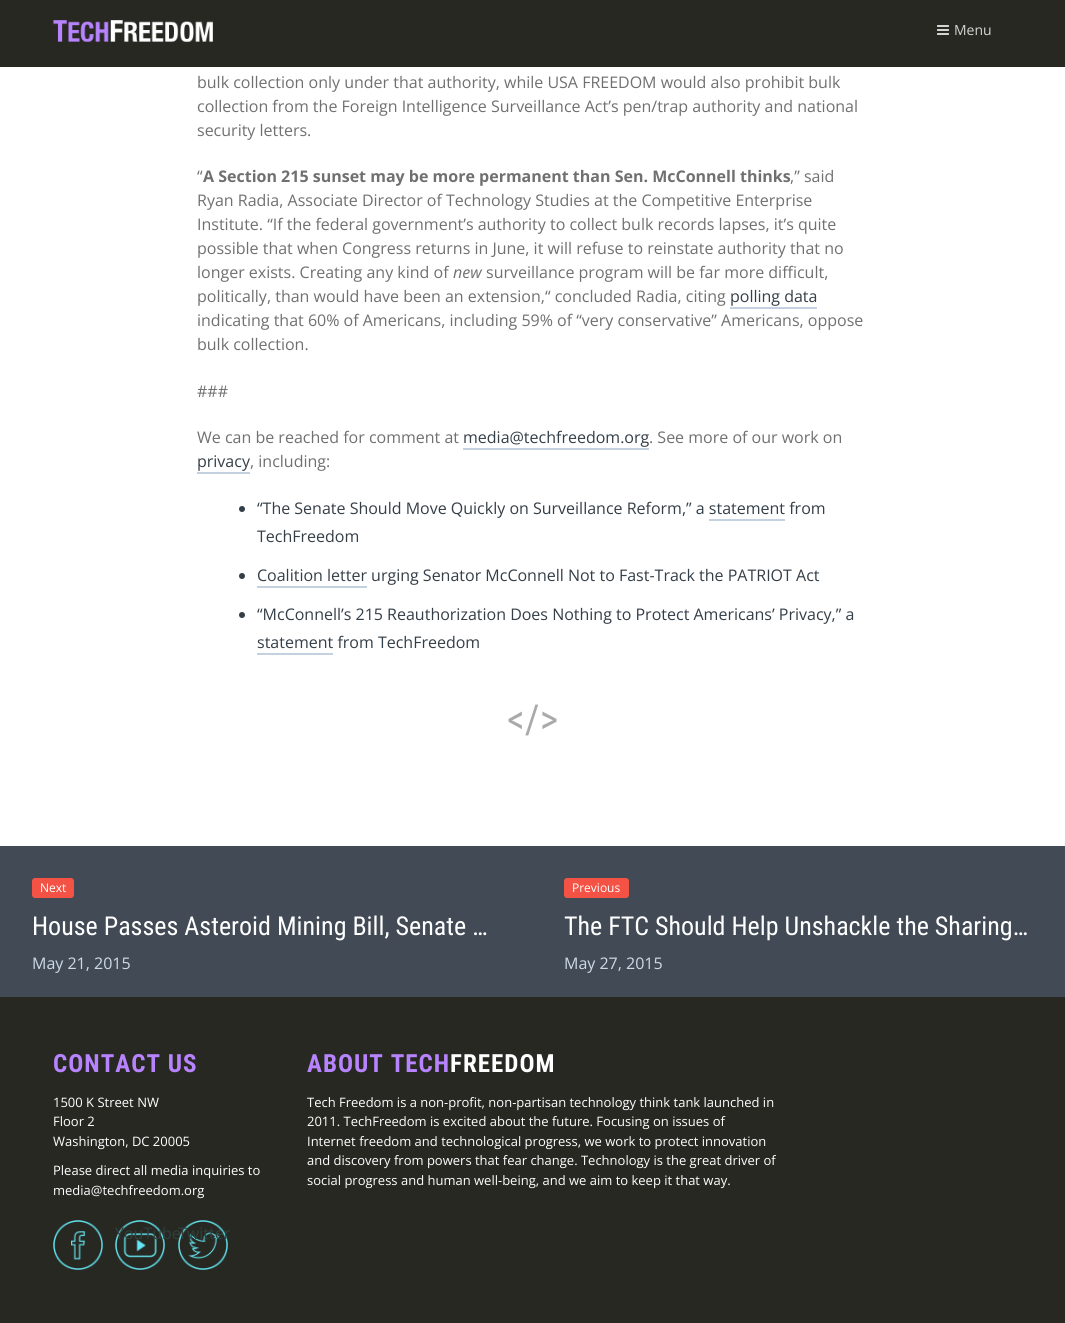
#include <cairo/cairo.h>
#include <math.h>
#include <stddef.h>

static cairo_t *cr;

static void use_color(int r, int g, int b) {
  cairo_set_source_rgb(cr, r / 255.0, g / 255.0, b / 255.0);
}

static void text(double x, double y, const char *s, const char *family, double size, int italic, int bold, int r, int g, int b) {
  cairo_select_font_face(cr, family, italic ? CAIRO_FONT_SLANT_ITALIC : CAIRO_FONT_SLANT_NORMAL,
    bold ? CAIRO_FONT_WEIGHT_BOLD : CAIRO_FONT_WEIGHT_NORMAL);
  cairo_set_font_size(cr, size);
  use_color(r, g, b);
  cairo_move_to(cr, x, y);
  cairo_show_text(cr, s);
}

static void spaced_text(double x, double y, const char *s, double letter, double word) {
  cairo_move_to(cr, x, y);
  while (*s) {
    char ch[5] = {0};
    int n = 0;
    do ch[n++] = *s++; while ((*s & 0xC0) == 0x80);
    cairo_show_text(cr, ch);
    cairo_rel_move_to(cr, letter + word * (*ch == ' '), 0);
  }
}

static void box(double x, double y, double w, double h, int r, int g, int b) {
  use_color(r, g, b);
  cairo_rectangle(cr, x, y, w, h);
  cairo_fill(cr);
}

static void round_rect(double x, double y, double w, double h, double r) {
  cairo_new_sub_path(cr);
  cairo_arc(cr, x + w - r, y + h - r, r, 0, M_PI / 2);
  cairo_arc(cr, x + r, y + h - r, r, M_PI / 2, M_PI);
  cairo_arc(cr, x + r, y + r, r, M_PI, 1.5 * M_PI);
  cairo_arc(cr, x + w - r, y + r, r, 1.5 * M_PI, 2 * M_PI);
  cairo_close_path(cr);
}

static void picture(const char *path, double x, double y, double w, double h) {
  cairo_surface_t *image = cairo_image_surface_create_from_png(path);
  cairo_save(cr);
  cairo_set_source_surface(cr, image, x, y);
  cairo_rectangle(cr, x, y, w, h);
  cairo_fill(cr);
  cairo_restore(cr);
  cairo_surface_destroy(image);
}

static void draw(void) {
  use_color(255, 255, 255);
  cairo_paint(cr);
  box(0, 0, 1065, 67, 39, 40, 34);
  picture("img_01.png", 53, 20, 160, 22);
  picture("img_02.png", 937, 25, 12, 10);
  box(730, 307, 87, 2, 196, 209, 224);
  box(463, 448, 186, 2, 196, 209, 224);
  box(197, 472, 53, 2, 196, 209, 224);
  use_color(52, 62, 71);
  cairo_arc(cr, 242, 509, 3, 0, 2 * M_PI);
  cairo_fill(cr);
  box(709, 519, 76, 2, 196, 209, 224);
  use_color(52, 62, 71);
  cairo_arc(cr, 242, 576, 3, 0, 2 * M_PI);
  cairo_fill(cr);
  box(257, 586, 110, 2, 196, 209, 224);
  use_color(52, 62, 71);
  cairo_arc(cr, 242, 615, 3, 0, 2 * M_PI);
  cairo_fill(cr);
  box(257, 653, 76, 2, 196, 209, 224);
  box(0, 846, 1065, 151, 66, 74, 85);
  use_color(243, 82, 69);
  round_rect(32, 878, 42, 20, 3);
  cairo_fill(cr);
  round_rect(564, 878, 65, 20, 3);
  cairo_fill(cr);
  box(0, 997, 1065, 326, 39, 40, 34);
  picture("img_03.png", 53, 1220, 50, 50);
  picture("img_04.png", 115, 1220, 50, 50);
  text(954, 35, "Menu", "Open Sans", 14, 0, 0, 212, 212, 211);
  text(197, 88, "bulk collection only under that authority, while USA FREEDOM would also prohibit bulk", "Open Sans", 16, 0, 0, 112, 112, 112);
  text(197, 112, "collection from the Foreign Intelligence Surveillance Act’s pen/trap authority and national", "Open Sans", 16, 0, 0, 112, 112, 112);
  text(197, 136, "security letters.", "Open Sans", 16, 0, 0, 112, 112, 112);
  text(197, 182, "“", "Open Sans", 16, 0, 0, 112, 112, 112);
  text(203, 182, "A Section 215 sunset may be more permanent than Sen. McConnell thinks", "Open Sans", 16, 0, 1, 112, 112, 112);
  text(790, 182, ",” said", "Open Sans", 16, 0, 0, 112, 112, 112);
  text(197, 206, "Ryan Radia, Associate Director of Technology Studies at the Competitive Enterprise", "Open Sans", 16, 0, 0, 112, 112, 112);
  text(197, 230, "Institute. “If the federal government’s authority to collect bulk records lapses, it’s quite", "Open Sans", 16, 0, 0, 112, 112, 112);
  text(197, 254, "possible that when Congress returns in June, it will refuse to reinstate authority that no", "Open Sans", 16, 0, 0, 112, 112, 112);
  text(197, 278, "longer exists. Creating any kind of", "Open Sans", 16, 0, 0, 112, 112, 112);
  text(453, 278, "new", "Open Sans", 16, 1, 0, 112, 112, 112);
  text(486, 278, "surveillance program will be far more difficult,", "Open Sans", 16, 0, 0, 112, 112, 112);
  text(197, 302, "politically, than would have been an extension,“ concluded Radia, citing", "Open Sans", 16, 0, 0, 112, 112, 112);
  text(730, 302, "polling data", "Open Sans", 16, 0, 0, 52, 62, 71);
  text(197, 326, "indicating that 60% of Americans, including 59% of “very conservative” Americans, oppose", "Open Sans", 16, 0, 0, 112, 112, 112);
  text(197, 350, "bulk collection.", "Open Sans", 16, 0, 0, 112, 112, 112);
  text(197, 397, "###", "Open Sans", 16, 0, 0, 112, 112, 112);
  text(197, 443, "We can be reached for comment at", "Open Sans", 16, 0, 0, 112, 112, 112);
  text(463, 443, "media@techfreedom.org", "Open Sans", 16, 0, 0, 52, 62, 71);
  text(649, 443, ". See more of our work on", "Open Sans", 16, 0, 0, 112, 112, 112);
  text(197, 467, "privacy", "Open Sans", 16, 0, 0, 52, 62, 71);
  text(250, 467, ", including:", "Open Sans", 16, 0, 0, 112, 112, 112);
  text(257, 514, "“The Senate Should Move Quickly on Surveillance Reform,” a statement from", "Open Sans", 16, 0, 0, 52, 62, 71);
  text(257, 542, "TechFreedom", "Open Sans", 16, 0, 0, 52, 62, 71);
  text(257, 581, "Coalition letter urging Senator McConnell Not to Fast-Track the PATRIOT Act", "Open Sans", 16, 0, 0, 52, 62, 71);
  text(257, 620, "“McConnell’s 215 Reauthorization Does Nothing to Protect Americans’ Privacy,” a", "Open Sans", 16, 0, 0, 52, 62, 71);
  text(257, 648, "statement from TechFreedom", "Open Sans", 16, 0, 0, 52, 62, 71);
  text(507, 733, "</>", "Roboto Condensed", 40, 0, 0, 170, 170, 170);
  text(40, 892, "Next", "Open Sans", 12, 0, 0, 255, 255, 255);
  text(32, 935, "House Passes Asteroid Mining Bill, Senate …", "Roboto Condensed", 26, 0, 0, 255, 255, 255);
  text(32, 969, "May 21, 2015", "Open Sans", 16, 0, 0, 205, 219, 230);
  text(572, 892, "Previous", "Open Sans", 12, 0, 0, 255, 255, 255);
  text(564, 935, "The FTC Should Help Unshackle the Sharing…", "Roboto Condensed", 26, 0, 0, 255, 255, 255);
  text(564, 969, "May 27, 2015", "Open Sans", 16, 0, 0, 205, 219, 230);
  cairo_select_font_face(cr, "Roboto Condensed", CAIRO_FONT_SLANT_NORMAL, CAIRO_FONT_WEIGHT_BOLD);
  cairo_set_font_size(cr, 25);
  use_color(184, 131, 255);
  spaced_text(53, 1072, "CONTACT US", 1, 0);
  text(53, 1107, "1500 K Street NW", "Open Sans", 13, 0, 0, 255, 255, 255);
  text(53, 1126, "Floor 2", "Open Sans", 13, 0, 0, 255, 255, 255);
  text(53, 1146, "Washington, DC 20005", "Open Sans", 13, 0, 0, 255, 255, 255);
  text(53, 1175, "Please direct all media inquiries to", "Open Sans", 13, 0, 0, 255, 255, 255);
  text(53, 1195, "media@techfreedom.org", "Open Sans", 13, 0, 0, 255, 255, 255);
  cairo_select_font_face(cr, "Roboto Condensed", CAIRO_FONT_SLANT_NORMAL, CAIRO_FONT_WEIGHT_BOLD);
  cairo_set_font_size(cr, 25);
  use_color(184, 131, 255);
  spaced_text(307, 1072, "ABOUT TECH", 1, 0);
  use_color(255, 255, 255);
  spaced_text(450, 1072, "FREEDOM", 1, 0);
  text(307, 1107, "Tech Freedom is a non-profit, non-partisan technology think tank launched in", "Open Sans", 13, 0, 0, 255, 255, 255);
  text(307, 1126, "2011. TechFreedom is excited about the future. Focusing on issues of", "Open Sans", 13, 0, 0, 255, 255, 255);
  text(307, 1146, "Internet freedom and technological progress, we work to protect innovation", "Open Sans", 13, 0, 0, 255, 255, 255);
  text(307, 1165, "and discovery from powers that fear change. Technology is the great driver of", "Open Sans", 13, 0, 0, 255, 255, 255);
  text(307, 1185, "social progress and human well-being, and we aim to keep it that way.", "Open Sans", 13, 0, 0, 255, 255, 255);
  text(115, 1239, "YouTube", "Open Sans", 16, 0, 0, 46, 64, 60);
  picture("img_05.png", 178, 1220, 50, 50);
  text(178, 1239, "Twitter", "Open Sans", 16, 0, 0, 46, 64, 60);
}

int main(void) {
  cairo_surface_t *surface = cairo_image_surface_create(CAIRO_FORMAT_RGB24, 1065, 1323);
  cr = cairo_create(surface);
  cairo_font_options_t *options = cairo_font_options_create();
  cairo_font_options_set_hint_metrics(options, CAIRO_HINT_METRICS_OFF);
  cairo_font_options_set_hint_style(options, CAIRO_HINT_STYLE_NONE);
  cairo_set_font_options(cr, options);
  cairo_set_miter_limit(cr, 4);
  draw();
  cairo_surface_write_to_png(surface, "out.png");
  cairo_font_options_destroy(options);
  cairo_destroy(cr);
  cairo_surface_destroy(surface);
  return 0;
}
